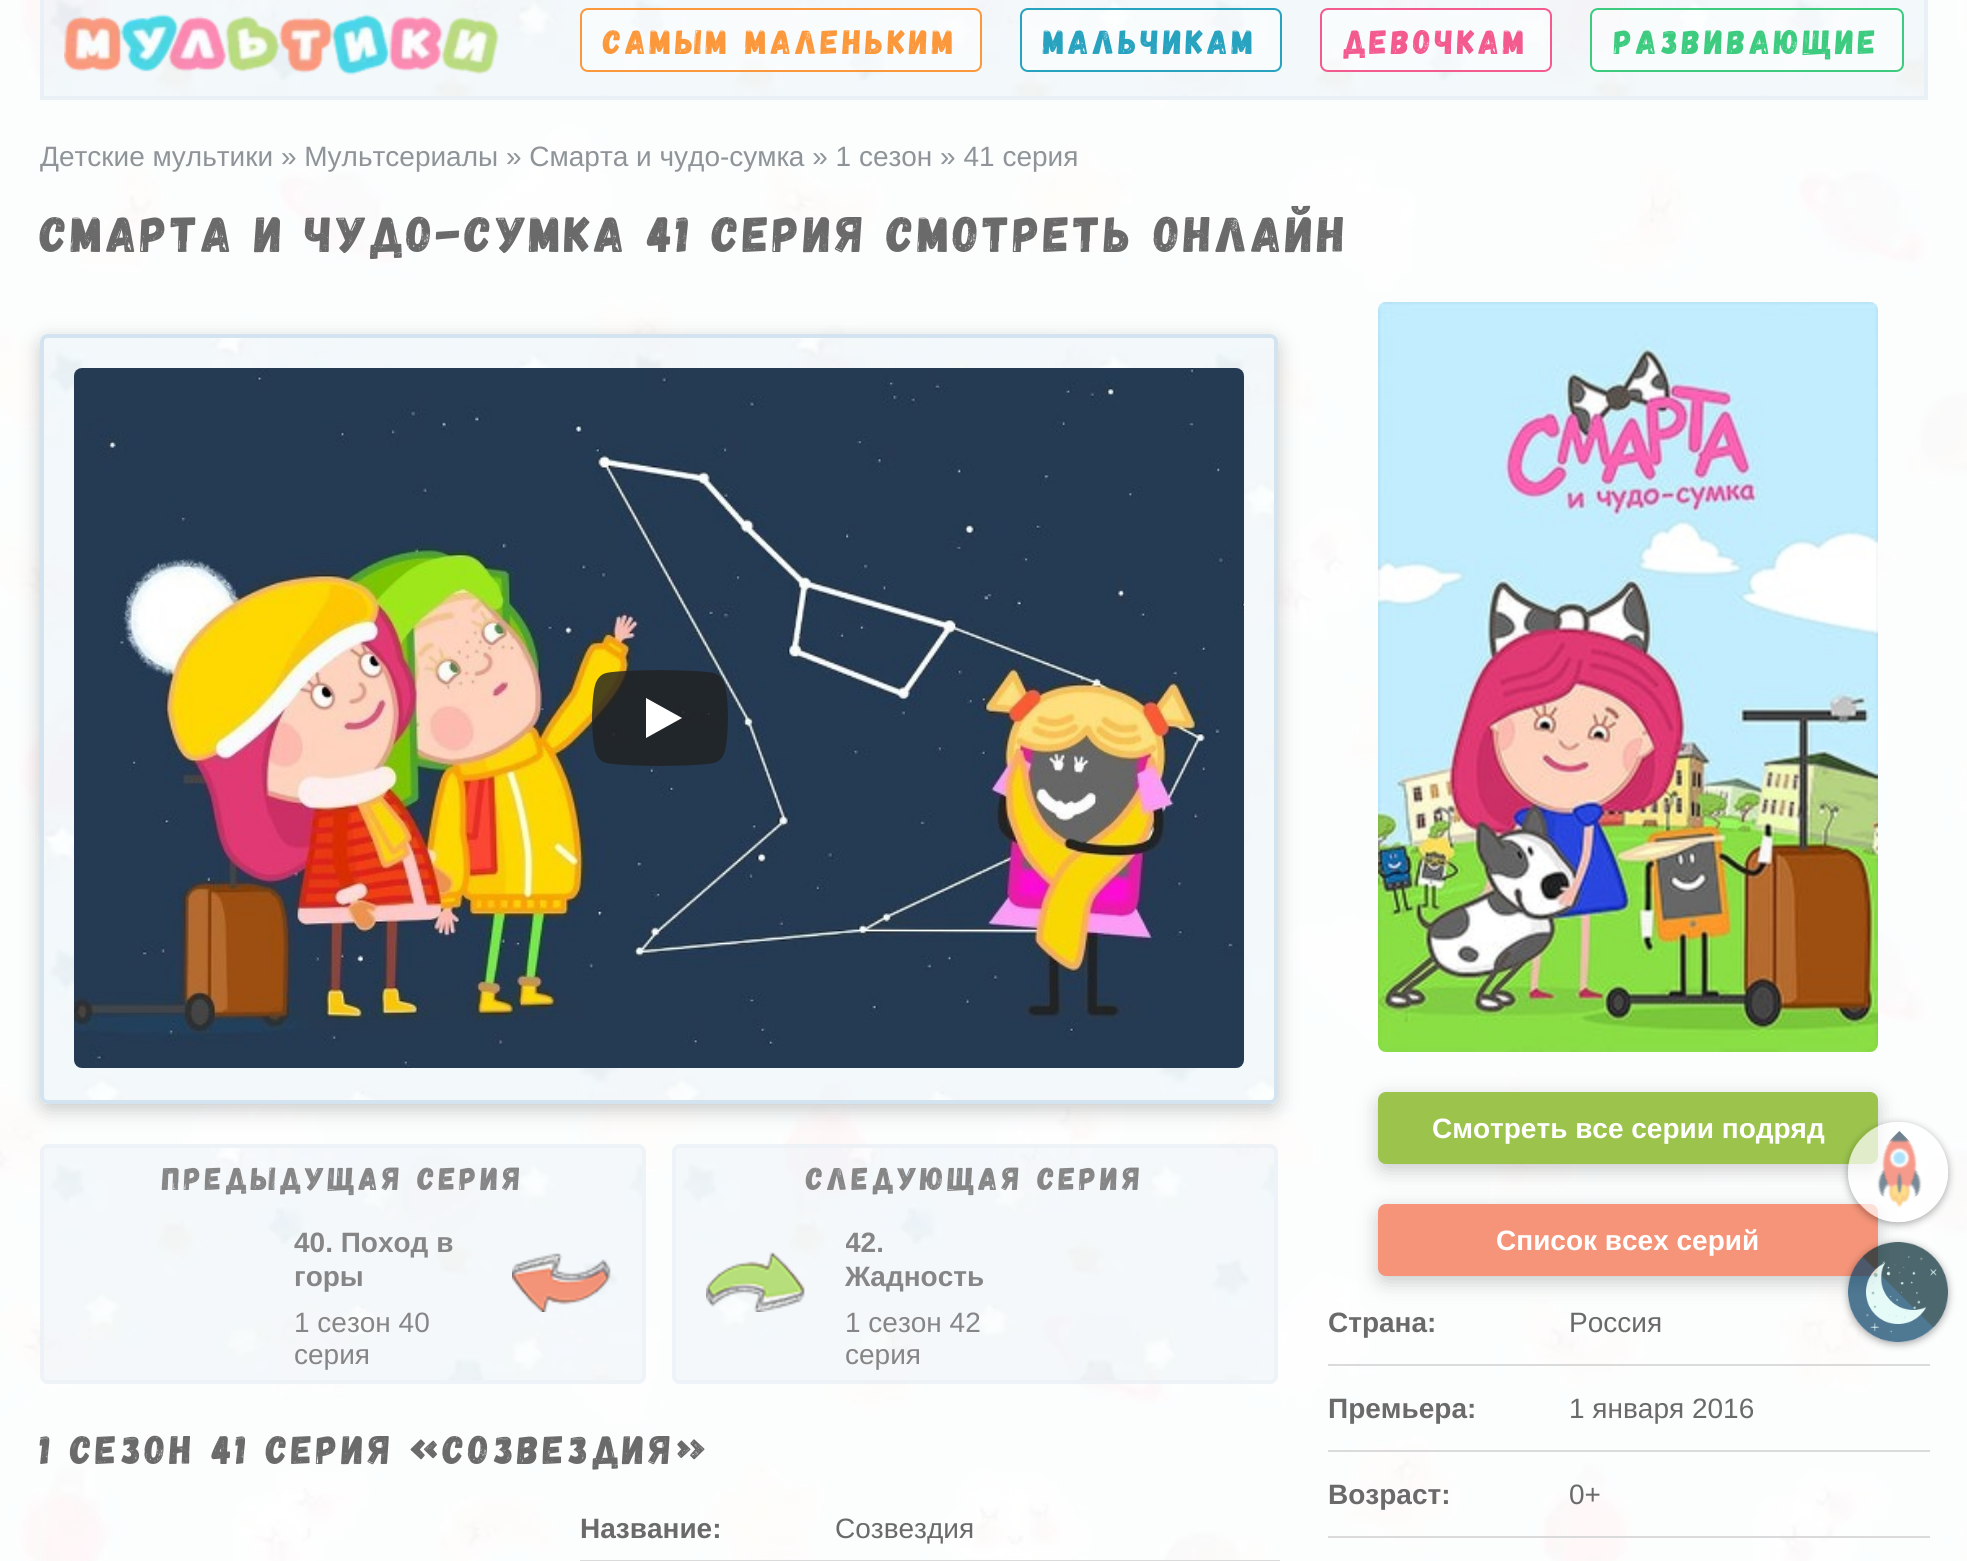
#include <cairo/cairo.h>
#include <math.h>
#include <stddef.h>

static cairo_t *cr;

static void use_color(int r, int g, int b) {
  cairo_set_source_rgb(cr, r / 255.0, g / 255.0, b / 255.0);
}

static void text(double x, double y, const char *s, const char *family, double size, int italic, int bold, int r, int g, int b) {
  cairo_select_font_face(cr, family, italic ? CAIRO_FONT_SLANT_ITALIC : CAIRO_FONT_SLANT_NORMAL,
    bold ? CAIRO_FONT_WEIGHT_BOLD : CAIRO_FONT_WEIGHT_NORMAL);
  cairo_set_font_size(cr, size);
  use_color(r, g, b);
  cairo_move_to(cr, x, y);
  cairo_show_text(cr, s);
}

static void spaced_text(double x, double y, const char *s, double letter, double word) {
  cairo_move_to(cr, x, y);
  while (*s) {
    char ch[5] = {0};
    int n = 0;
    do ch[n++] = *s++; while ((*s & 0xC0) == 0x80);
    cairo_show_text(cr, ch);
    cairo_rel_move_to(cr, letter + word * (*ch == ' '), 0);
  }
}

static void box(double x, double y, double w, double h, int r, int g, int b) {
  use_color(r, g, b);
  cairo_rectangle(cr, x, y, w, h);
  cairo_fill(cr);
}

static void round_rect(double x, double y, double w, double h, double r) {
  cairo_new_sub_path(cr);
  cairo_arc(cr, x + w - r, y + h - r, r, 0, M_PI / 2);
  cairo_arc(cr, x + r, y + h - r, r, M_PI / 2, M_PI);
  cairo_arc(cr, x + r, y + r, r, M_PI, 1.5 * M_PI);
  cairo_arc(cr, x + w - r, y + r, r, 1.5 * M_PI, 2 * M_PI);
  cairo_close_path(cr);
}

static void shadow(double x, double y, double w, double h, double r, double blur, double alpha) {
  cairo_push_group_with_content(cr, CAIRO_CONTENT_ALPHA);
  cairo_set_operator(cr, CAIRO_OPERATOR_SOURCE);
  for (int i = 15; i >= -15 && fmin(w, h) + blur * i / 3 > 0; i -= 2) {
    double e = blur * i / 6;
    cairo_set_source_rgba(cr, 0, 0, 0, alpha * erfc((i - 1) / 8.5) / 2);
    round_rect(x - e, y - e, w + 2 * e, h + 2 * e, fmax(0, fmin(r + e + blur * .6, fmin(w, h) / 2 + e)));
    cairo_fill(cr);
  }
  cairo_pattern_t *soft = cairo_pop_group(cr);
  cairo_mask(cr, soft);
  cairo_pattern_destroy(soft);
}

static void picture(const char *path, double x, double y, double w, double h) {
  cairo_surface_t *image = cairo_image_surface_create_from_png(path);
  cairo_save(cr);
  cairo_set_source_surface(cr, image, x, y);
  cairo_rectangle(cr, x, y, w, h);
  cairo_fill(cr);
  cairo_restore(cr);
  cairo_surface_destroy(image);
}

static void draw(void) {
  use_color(255, 255, 255);
  cairo_paint(cr);
  picture("img_01.png", 0, 0, 1967, 1561);
  cairo_rectangle(cr, 42, -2, 1884, 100);
  use_color(233, 240, 246);
  cairo_set_line_width(cr, 4);
  cairo_stroke(cr);
  picture("img_02.png", 44, 0, 1880, 96);
  picture("img_03.png", 64, 14, 435, 61);
  cairo_set_source_rgba(cr, 1, 1, 1, 0.5);
  round_rect(581, 9, 400, 62, 7);
  cairo_fill_preserve(cr);
  use_color(252, 152, 60);
  cairo_set_line_width(cr, 2);
  cairo_stroke(cr);
  cairo_set_source_rgba(cr, 1, 1, 1, 0.5);
  round_rect(1021, 9, 260, 62, 7);
  cairo_fill_preserve(cr);
  use_color(39, 162, 191);
  cairo_stroke(cr);
  cairo_set_source_rgba(cr, 1, 1, 1, 0.5);
  round_rect(1321, 9, 230, 62, 7);
  cairo_fill_preserve(cr);
  use_color(243, 90, 142);
  cairo_stroke(cr);
  cairo_set_source_rgba(cr, 1, 1, 1, 0.5);
  round_rect(1591, 9, 312, 62, 7);
  cairo_fill_preserve(cr);
  use_color(61, 204, 127);
  cairo_stroke(cr);
  cairo_save(cr);
  cairo_set_fill_rule(cr, CAIRO_FILL_RULE_EVEN_ODD);
  cairo_new_path(cr);
  cairo_move_to(cr, 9, 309);
  cairo_line_to(cr, 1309, 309);
  cairo_line_to(cr, 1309, 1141);
  cairo_line_to(cr, 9, 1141);
  cairo_close_path(cr);
  cairo_move_to(cr, 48, 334);
  cairo_line_to(cr, 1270, 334);
  cairo_curve_to(cr, 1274.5, 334, 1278, 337.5, 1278, 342);
  cairo_line_to(cr, 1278, 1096);
  cairo_curve_to(cr, 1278, 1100.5, 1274.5, 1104, 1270, 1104);
  cairo_line_to(cr, 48, 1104);
  cairo_curve_to(cr, 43.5, 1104, 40, 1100.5, 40, 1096);
  cairo_line_to(cr, 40, 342);
  cairo_curve_to(cr, 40, 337.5, 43.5, 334, 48, 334);
  cairo_close_path(cr);
  cairo_clip(cr);
  use_color(0, 0, 0);
  shadow(40, 340, 1238, 770, 8, 10, 0.2);
  cairo_restore(cr);
  round_rect(42, 336, 1234, 766, 6);
  use_color(211, 227, 240);
  cairo_set_line_width(cr, 4);
  cairo_stroke(cr);
  picture("img_04.png", 44, 338, 1230, 762);
  picture("img_05.png", 74, 368, 1170, 700);
  picture("img_06.png", 592, 670, 136, 96);
  round_rect(42, 1146, 602, 236, 6);
  cairo_set_source_rgba(cr, 0.914, 0.941, 0.965, 0.8);
  cairo_stroke(cr);
  picture("img_07.png", 44, 1148, 598, 232);
  picture("img_08.png", 512, 1253, 99, 59);
  round_rect(674, 1146, 602, 236, 6);
  cairo_stroke(cr);
  picture("img_09.png", 676, 1148, 598, 232);
  picture("img_10.png", 706, 1252, 99, 60);
  box(580, 1560, 700, 1, 218, 218, 218);
  picture("img_11.png", 1378, 302, 500, 750);
  use_color(0, 0, 0);
  shadow(1378, 1098, 500, 72, 8, 10, 0.2);
  use_color(156, 196, 77);
  round_rect(1378, 1092, 500, 72, 8);
  cairo_fill(cr);
  use_color(0, 0, 0);
  shadow(1378, 1210, 500, 72, 8, 10, 0.2);
  use_color(245, 148, 121);
  round_rect(1378, 1204, 500, 72, 8);
  cairo_fill(cr);
  box(1328, 1364, 602, 2, 218, 218, 218);
  box(1328, 1450, 602, 2, 218, 218, 218);
  box(1328, 1536, 602, 2, 218, 218, 218);
  cairo_save(cr);
  cairo_set_fill_rule(cr, CAIRO_FILL_RULE_EVEN_ODD);
  cairo_new_path(cr);
  cairo_move_to(cr, 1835, 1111);
  cairo_line_to(cr, 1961, 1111);
  cairo_line_to(cr, 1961, 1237);
  cairo_line_to(cr, 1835, 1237);
  cairo_close_path(cr);
  cairo_move_to(cr, 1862.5, 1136.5);
  cairo_curve_to(cr, 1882, 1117, 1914, 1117, 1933.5, 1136.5);
  cairo_curve_to(cr, 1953, 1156, 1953, 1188, 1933.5, 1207.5);
  cairo_curve_to(cr, 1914, 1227, 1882, 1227, 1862.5, 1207.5);
  cairo_curve_to(cr, 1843, 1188, 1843, 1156, 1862.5, 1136.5);
  cairo_close_path(cr);
  cairo_clip(cr);
  use_color(0, 0, 0);
  shadow(1848, 1124, 100, 100, 50, 4, 0.35);
  cairo_restore(cr);
  cairo_set_source_rgba(cr, 1, 1, 1, 0.7);
  cairo_new_path(cr);
  cairo_move_to(cr, 1863, 1137);
  cairo_curve_to(cr, 1882, 1117, 1914, 1117, 1933, 1137);
  cairo_curve_to(cr, 1953, 1156, 1953, 1188, 1933, 1207);
  cairo_curve_to(cr, 1914, 1227, 1882, 1227, 1863, 1207);
  cairo_curve_to(cr, 1843, 1188, 1843, 1156, 1863, 1137);
  cairo_close_path(cr);
  cairo_fill(cr);
  picture("img_12.png", 1877, 1131, 45, 77);
  cairo_save(cr);
  cairo_set_fill_rule(cr, CAIRO_FILL_RULE_EVEN_ODD);
  cairo_new_path(cr);
  cairo_move_to(cr, 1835, 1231);
  cairo_line_to(cr, 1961, 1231);
  cairo_line_to(cr, 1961, 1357);
  cairo_line_to(cr, 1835, 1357);
  cairo_close_path(cr);
  cairo_move_to(cr, 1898, 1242);
  cairo_curve_to(cr, 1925.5, 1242, 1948, 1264.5, 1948, 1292);
  cairo_curve_to(cr, 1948, 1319.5, 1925.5, 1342, 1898, 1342);
  cairo_curve_to(cr, 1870.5, 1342, 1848, 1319.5, 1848, 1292);
  cairo_curve_to(cr, 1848, 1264.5, 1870.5, 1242, 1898, 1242);
  cairo_close_path(cr);
  cairo_clip(cr);
  use_color(0, 0, 0);
  shadow(1848, 1244, 100, 100, 50, 4, 0.35);
  cairo_restore(cr);
  picture("img_13.png", 1848, 1242, 100, 100);
  cairo_select_font_face(cr, "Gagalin", CAIRO_FONT_SLANT_NORMAL, CAIRO_FONT_WEIGHT_NORMAL);
  cairo_set_font_size(cr, 34);
  use_color(252, 152, 60);
  spaced_text(603, 54, "Самым маленьким", 4, 0);
  use_color(39, 162, 191);
  spaced_text(1043, 54, "Мальчикам", 4, 0);
  use_color(243, 90, 142);
  spaced_text(1343, 54, "Девочкам", 4, 0);
  use_color(61, 204, 127);
  spaced_text(1614, 54, "Развивающие", 4, 0);
  text(40, 166, "Детские мультики » Мультсериалы » Смарта и чудо-сумка » 1 сезон » 41 серия", "Liberation Sans", 28, 0, 0, 142, 148, 152);
  cairo_select_font_face(cr, "Gagalin", CAIRO_FONT_SLANT_NORMAL, CAIRO_FONT_WEIGHT_NORMAL);
  cairo_set_font_size(cr, 50);
  use_color(106, 106, 106);
  spaced_text(40, 252, "Смарта и чудо-сумка 41 серия смотреть онлайн", 4, 0);
  cairo_set_font_size(cr, 32);
  use_color(134, 134, 135);
  spaced_text(162, 1190, "Предыдущая серия", 4, 0);
  text(294, 1252, "40. Поход в", "Liberation Sans", 28, 0, 1, 134, 134, 135);
  text(294, 1286, "горы", "Liberation Sans", 28, 0, 1, 134, 134, 135);
  text(294, 1332, "1 сезон 40", "Liberation Sans", 28, 0, 0, 134, 134, 135);
  text(294, 1364, "серия", "Liberation Sans", 28, 0, 0, 134, 134, 135);
  cairo_select_font_face(cr, "Gagalin", CAIRO_FONT_SLANT_NORMAL, CAIRO_FONT_WEIGHT_NORMAL);
  cairo_set_font_size(cr, 32);
  spaced_text(806, 1190, "Следующая серия", 4, 0);
  cairo_save(cr);
  cairo_rectangle(cr, 846, 1226, 178, 68);
  cairo_clip(cr);
  text(845, 1252, "42.", "Liberation Sans", 28, 0, 1, 134, 134, 135);
  cairo_restore(cr);
  text(845, 1286, "Жадность", "Liberation Sans", 28, 0, 1, 134, 134, 135);
  text(845, 1332, "1 сезон 42", "Liberation Sans", 28, 0, 0, 134, 134, 135);
  text(845, 1364, "серия", "Liberation Sans", 28, 0, 0, 134, 134, 135);
  cairo_select_font_face(cr, "Gagalin", CAIRO_FONT_SLANT_NORMAL, CAIRO_FONT_WEIGHT_NORMAL);
  cairo_set_font_size(cr, 40);
  use_color(106, 106, 106);
  spaced_text(40, 1464, "1 сезон 41 серия «Созвездия»", 4, 0);
  text(580, 1538, "Название:", "Liberation Sans", 28, 0, 1, 106, 106, 106);
  text(835, 1538, "Созвездия", "Liberation Sans", 28, 0, 0, 106, 106, 106);
  text(1432, 1138, "Смотреть все серии подряд", "Liberation Sans", 28, 0, 1, 255, 255, 255);
  text(1496, 1250, "Список всех серий", "Liberation Sans", 28, 0, 1, 255, 255, 255);
  text(1328, 1332, "Страна:", "Liberation Sans", 28, 0, 1, 106, 106, 106);
  text(1569, 1332, "Россия", "Liberation Sans", 28, 0, 0, 106, 106, 106);
  text(1328, 1418, "Премьера:", "Liberation Sans", 28, 0, 1, 106, 106, 106);
  text(1569, 1418, "1 января 2016", "Liberation Sans", 28, 0, 0, 106, 106, 106);
  text(1328, 1504, "Возраст:", "Liberation Sans", 28, 0, 1, 106, 106, 106);
  text(1569, 1504, "0+", "Liberation Sans", 28, 0, 0, 106, 106, 106);
}

int main(void) {
  cairo_surface_t *surface = cairo_image_surface_create(CAIRO_FORMAT_RGB24, 1967, 1561);
  cr = cairo_create(surface);
  cairo_font_options_t *options = cairo_font_options_create();
  cairo_font_options_set_hint_metrics(options, CAIRO_HINT_METRICS_OFF);
  cairo_font_options_set_hint_style(options, CAIRO_HINT_STYLE_NONE);
  cairo_set_font_options(cr, options);
  cairo_set_miter_limit(cr, 4);
  draw();
  cairo_surface_write_to_png(surface, "out.png");
  cairo_font_options_destroy(options);
  cairo_destroy(cr);
  cairo_surface_destroy(surface);
  return 0;
}
